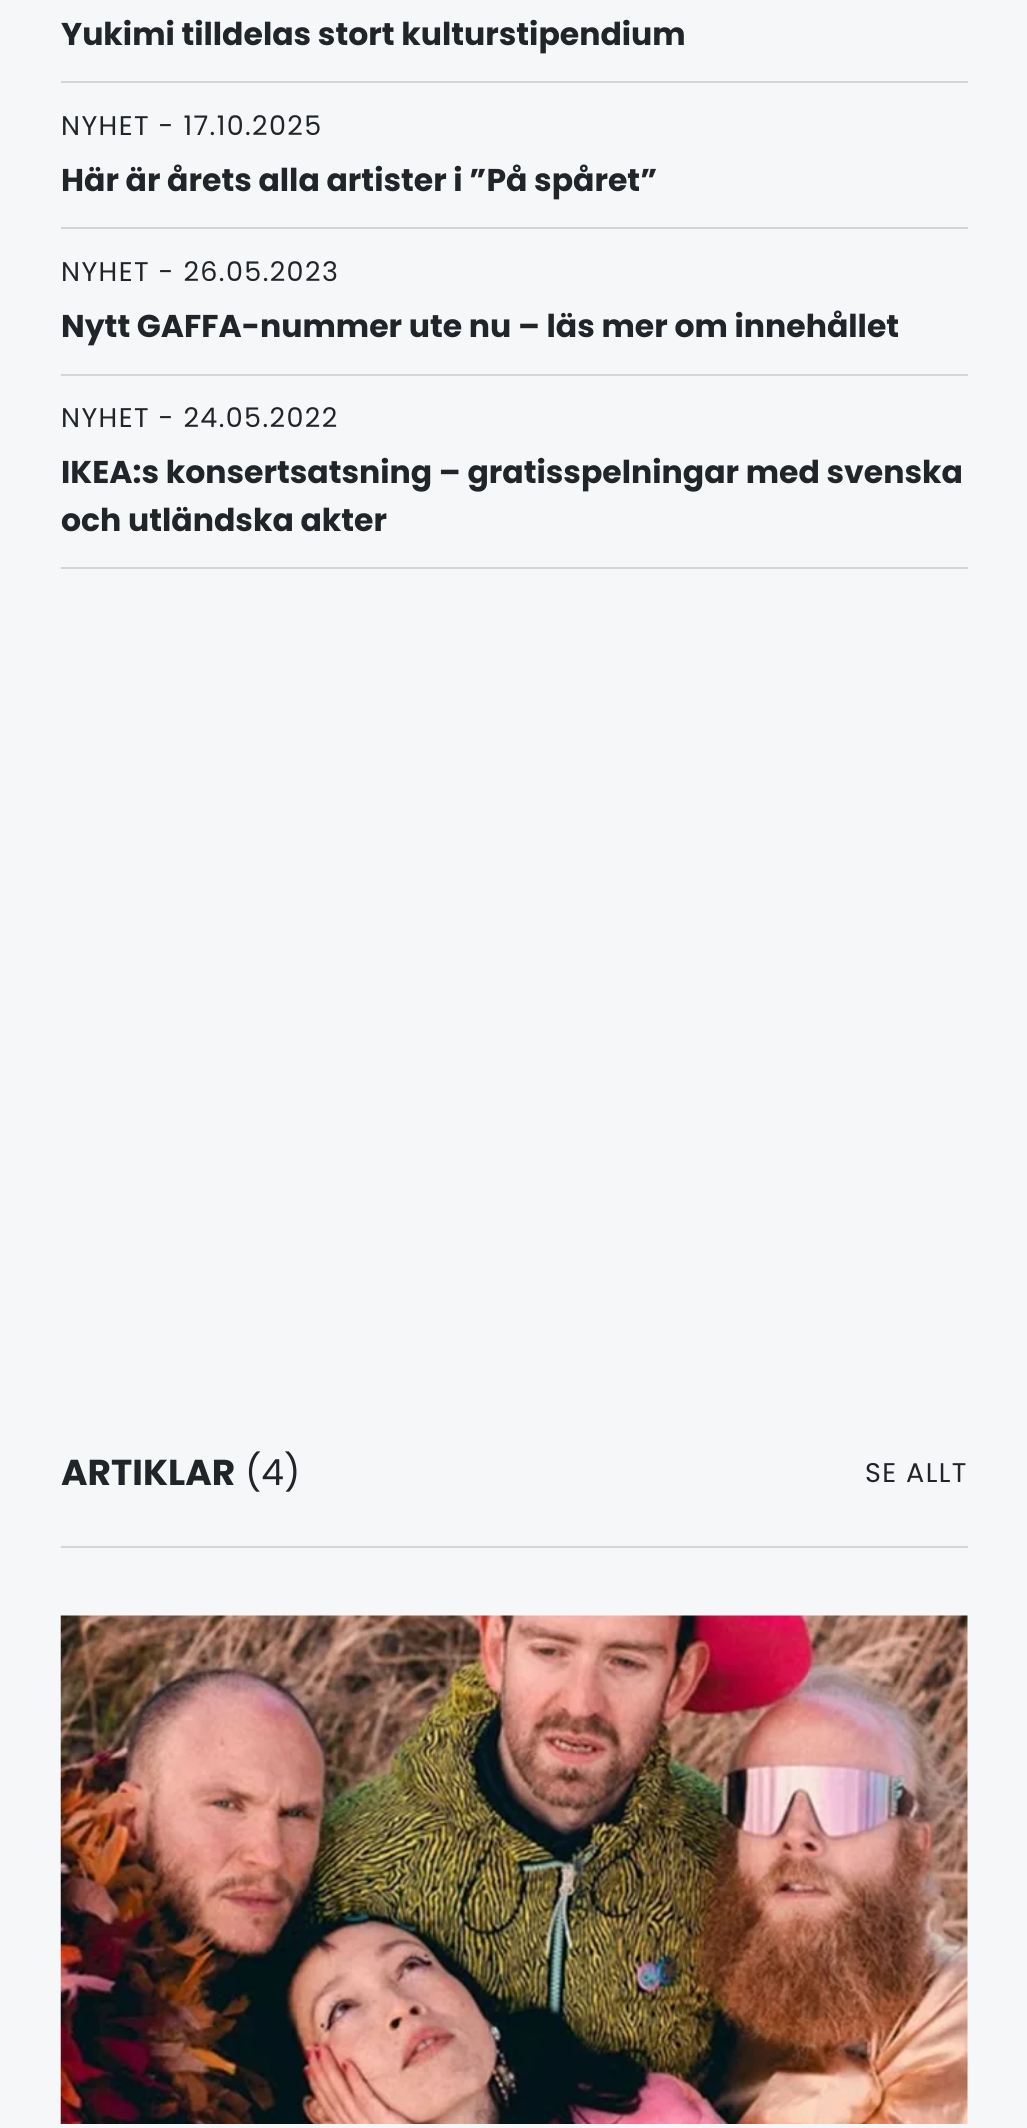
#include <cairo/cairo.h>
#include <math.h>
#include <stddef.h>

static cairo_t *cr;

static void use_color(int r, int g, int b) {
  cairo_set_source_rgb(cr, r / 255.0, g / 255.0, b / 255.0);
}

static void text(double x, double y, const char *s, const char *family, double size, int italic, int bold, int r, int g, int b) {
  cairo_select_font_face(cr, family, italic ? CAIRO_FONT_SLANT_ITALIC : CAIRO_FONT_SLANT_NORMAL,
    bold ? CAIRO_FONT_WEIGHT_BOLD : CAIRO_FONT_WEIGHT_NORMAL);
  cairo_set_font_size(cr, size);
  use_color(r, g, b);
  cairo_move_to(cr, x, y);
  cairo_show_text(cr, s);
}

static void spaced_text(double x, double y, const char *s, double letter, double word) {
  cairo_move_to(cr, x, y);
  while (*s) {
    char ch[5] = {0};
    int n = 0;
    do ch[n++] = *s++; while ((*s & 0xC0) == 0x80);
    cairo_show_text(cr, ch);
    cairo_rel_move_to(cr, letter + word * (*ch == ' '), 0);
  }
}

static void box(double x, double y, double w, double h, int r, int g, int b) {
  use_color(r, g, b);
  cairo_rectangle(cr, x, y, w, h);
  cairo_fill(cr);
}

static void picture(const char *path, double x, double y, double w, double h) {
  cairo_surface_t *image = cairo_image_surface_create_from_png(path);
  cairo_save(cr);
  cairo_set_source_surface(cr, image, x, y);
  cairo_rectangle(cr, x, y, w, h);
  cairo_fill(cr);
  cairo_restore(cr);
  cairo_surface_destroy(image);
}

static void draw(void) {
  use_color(245, 247, 248);
  cairo_paint(cr);
  box(61, 81, 907, 2, 213, 213, 213);
  box(61, 227, 907, 2, 213, 213, 213);
  box(61, 374, 907, 2, 213, 213, 213);
  box(61, 567, 907, 2, 213, 213, 213);
  box(61, 1546, 907, 2, 213, 213, 213);
  picture("img_01.png", 60, 1615, 908, 509);
  text(61, 45, "Yukimi tilldelas stort kulturstipendium", "Poppins", 31.5, 0, 1, 33, 37, 41);
  cairo_select_font_face(cr, "Poppins", CAIRO_FONT_SLANT_NORMAL, CAIRO_FONT_WEIGHT_NORMAL);
  cairo_set_font_size(cr, 27);
  spaced_text(61, 135, "NYHET - 17.10.2025", 1.4, 0);
  text(61, 191, "Här är årets alla artister i ”På spåret”", "Poppins", 31.5, 0, 1, 33, 37, 41);
  cairo_select_font_face(cr, "Poppins", CAIRO_FONT_SLANT_NORMAL, CAIRO_FONT_WEIGHT_NORMAL);
  cairo_set_font_size(cr, 27);
  spaced_text(61, 281, "NYHET - 26.05.2023", 1.4, 0);
  text(61, 337, "Nytt GAFFA-nummer ute nu – läs mer om innehållet", "Poppins", 31.5, 0, 1, 33, 37, 41);
  cairo_select_font_face(cr, "Poppins", CAIRO_FONT_SLANT_NORMAL, CAIRO_FONT_WEIGHT_NORMAL);
  cairo_set_font_size(cr, 27);
  spaced_text(61, 427, "NYHET - 24.05.2022", 1.4, 0);
  text(61, 483, "IKEA:s konsertsatsning – gratisspelningar med svenska", "Poppins", 31.5, 0, 1, 33, 37, 41);
  text(61, 531, "och utländska akter", "Poppins", 31.5, 0, 1, 33, 37, 41);
  text(61, 1485, "ARTIKLAR", "Poppins", 36, 0, 1, 33, 37, 41);
  text(245, 1485, "(4)", "Poppins", 36, 0, 0, 33, 37, 41);
  cairo_set_font_size(cr, 27);
  spaced_text(865, 1482, "SE ALLT", 1.4, 0);
}

int main(void) {
  cairo_surface_t *surface = cairo_image_surface_create(CAIRO_FORMAT_RGB24, 1027, 2128);
  cr = cairo_create(surface);
  cairo_font_options_t *options = cairo_font_options_create();
  cairo_font_options_set_hint_metrics(options, CAIRO_HINT_METRICS_OFF);
  cairo_font_options_set_hint_style(options, CAIRO_HINT_STYLE_NONE);
  cairo_set_font_options(cr, options);
  cairo_set_miter_limit(cr, 4);
  draw();
  cairo_surface_write_to_png(surface, "out.png");
  cairo_font_options_destroy(options);
  cairo_destroy(cr);
  cairo_surface_destroy(surface);
  return 0;
}
